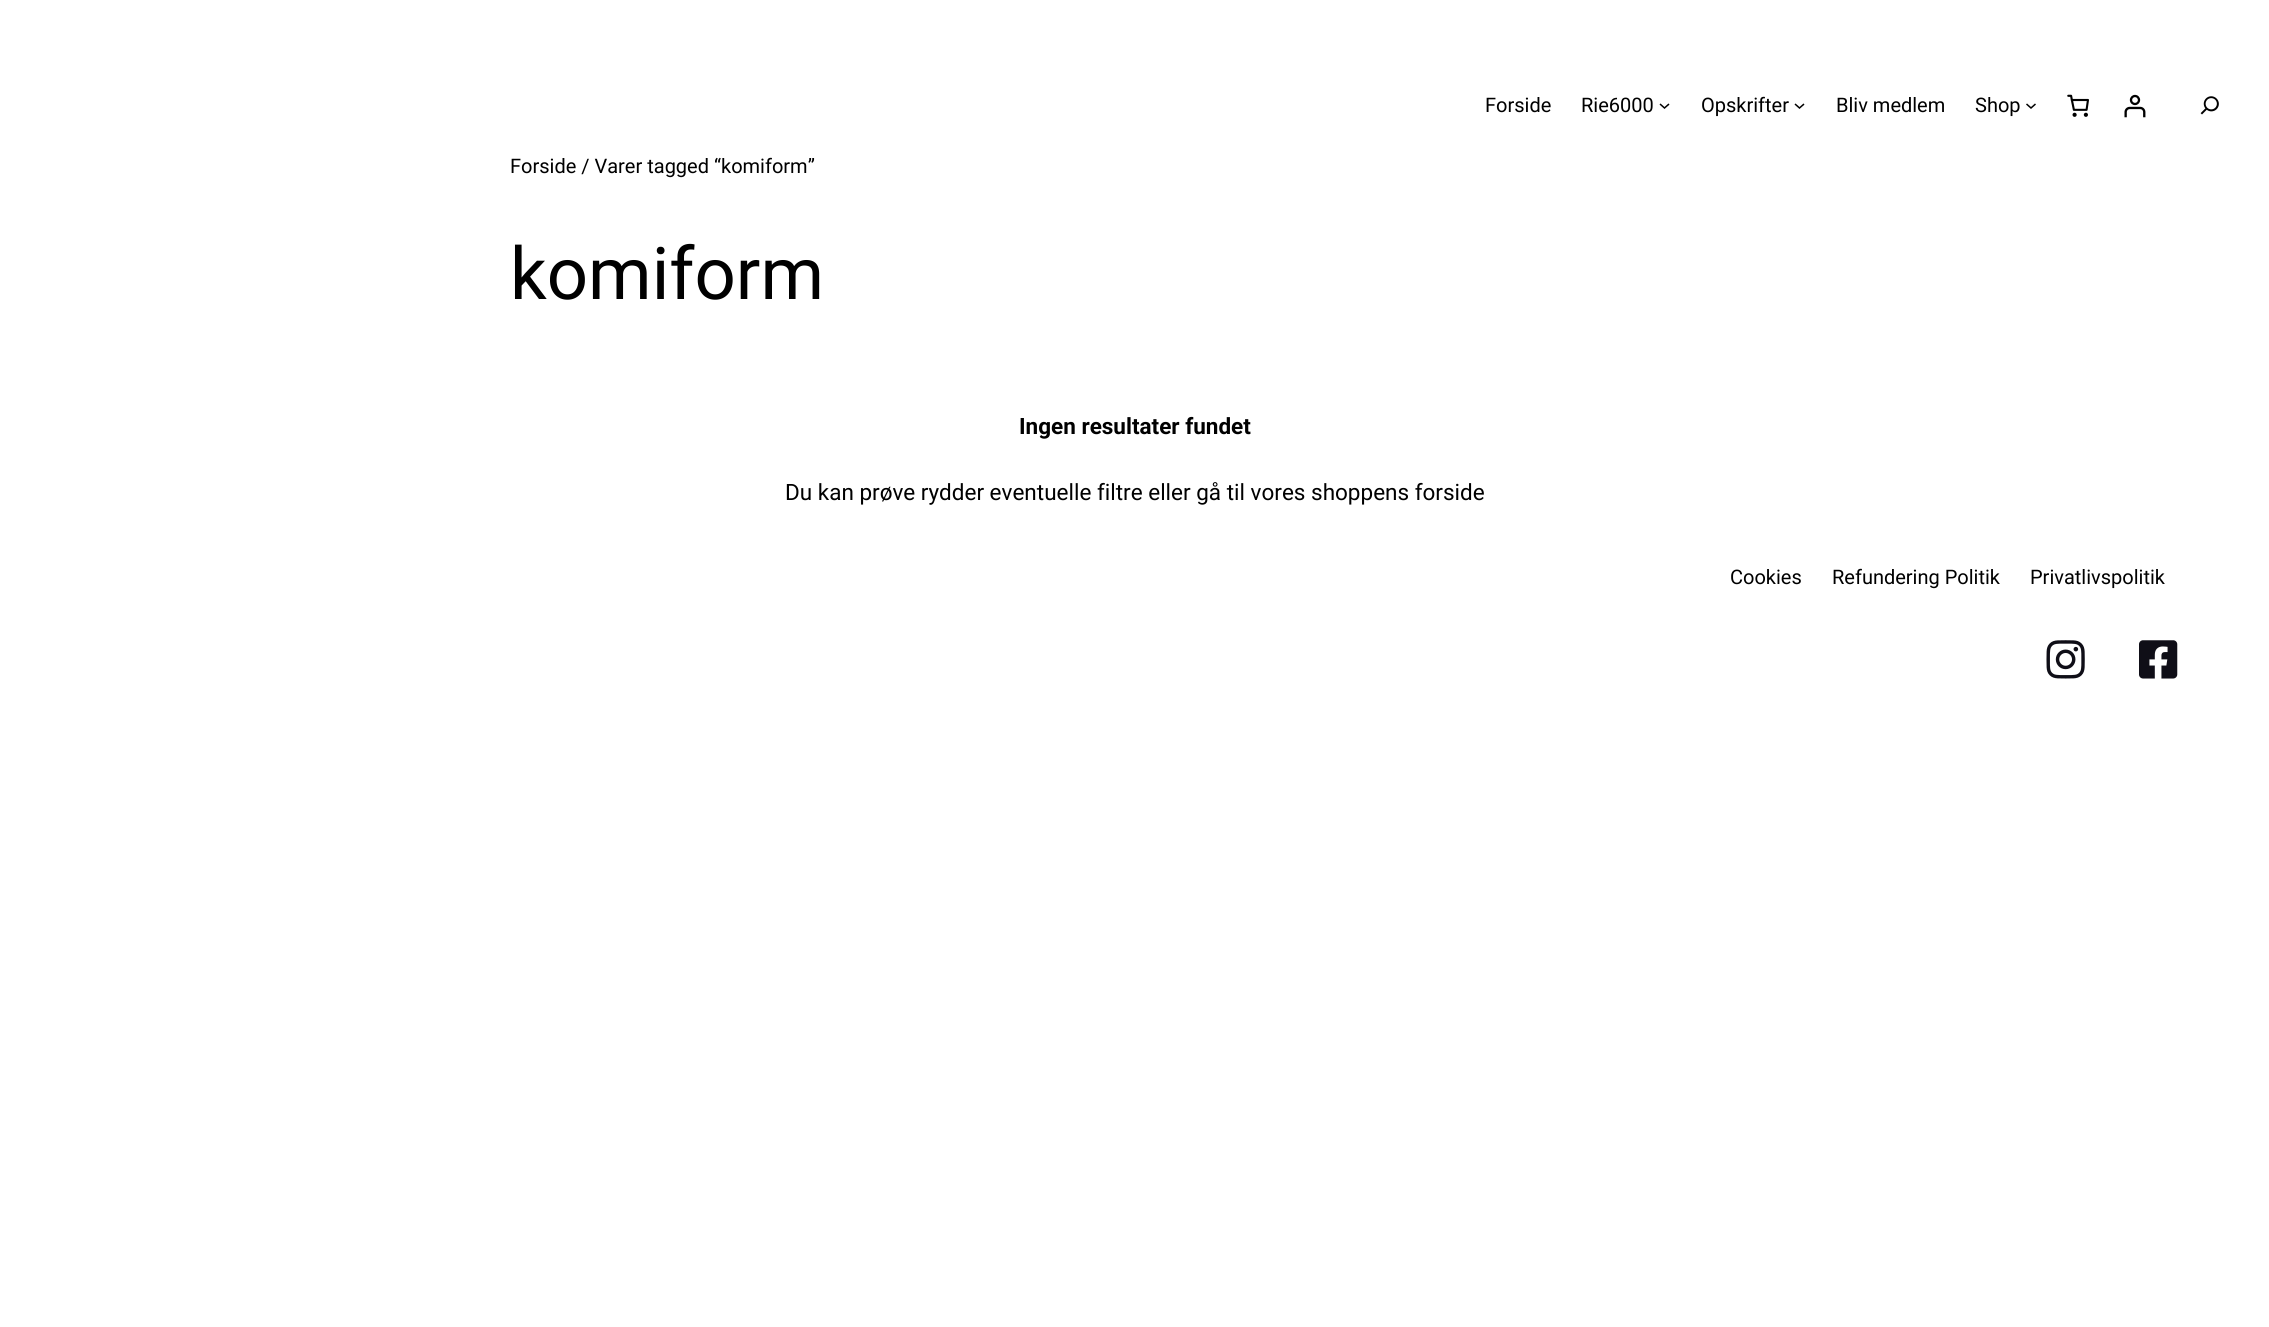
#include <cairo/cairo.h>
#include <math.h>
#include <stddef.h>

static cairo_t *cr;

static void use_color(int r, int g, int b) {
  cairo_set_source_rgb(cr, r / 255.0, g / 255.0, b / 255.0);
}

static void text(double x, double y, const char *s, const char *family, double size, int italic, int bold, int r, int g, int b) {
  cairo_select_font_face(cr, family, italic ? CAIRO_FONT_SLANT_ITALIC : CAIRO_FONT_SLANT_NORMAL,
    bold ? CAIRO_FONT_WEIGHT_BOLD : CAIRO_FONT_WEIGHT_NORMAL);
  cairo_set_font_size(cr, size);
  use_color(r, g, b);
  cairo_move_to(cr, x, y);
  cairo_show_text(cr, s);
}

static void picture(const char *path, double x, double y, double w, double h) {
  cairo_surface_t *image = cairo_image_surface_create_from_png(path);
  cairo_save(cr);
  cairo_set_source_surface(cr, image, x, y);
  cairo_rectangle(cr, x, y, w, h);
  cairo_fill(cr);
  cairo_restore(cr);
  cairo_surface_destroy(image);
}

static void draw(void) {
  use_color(255, 255, 255);
  cairo_paint(cr);
  cairo_new_path(cr);
  cairo_move_to(cr, 1660, 104);
  cairo_line_to(cr, 1664.5, 108);
  cairo_line_to(cr, 1669, 104);
  use_color(0, 0, 0);
  cairo_set_line_width(cr, 1.5);
  cairo_stroke(cr);
  cairo_new_path(cr);
  cairo_move_to(cr, 1795, 104);
  cairo_line_to(cr, 1799.5, 108);
  cairo_line_to(cr, 1804, 104);
  cairo_stroke(cr);
  cairo_new_path(cr);
  cairo_move_to(cr, 2026.5, 104);
  cairo_line_to(cr, 2031, 108);
  cairo_line_to(cr, 2035.5, 104);
  cairo_stroke(cr);
  picture("img_01.png", 2067, 94, 22, 23);
  picture("img_02.png", 2124, 94, 22, 24);
  picture("img_03.png", 2200, 96, 19, 19);
  picture("img_04.png", 2046, 640, 39, 39);
  picture("img_05.png", 2139, 640, 39, 39);
  text(1485, 112, "Forside", "Roboto", 20, 0, 0, 0, 0, 0);
  text(1581, 112, "Rie6000", "Roboto", 20, 0, 0, 0, 0, 0);
  text(1701, 112, "Opskrifter", "Roboto", 20, 0, 0, 0, 0, 0);
  text(1836, 112, "Bliv medlem", "Roboto", 20, 0, 0, 0, 0, 0);
  text(1975, 112, "Shop", "Roboto", 20, 0, 0, 0, 0, 0);
  text(510, 173, "Forside / Varer tagged “komiform”", "Roboto", 20, 0, 0, 0, 0, 0);
  text(510, 299, "komiform", "Roboto", 72.5, 0, 0, 0, 0, 0);
  text(1019, 434, "Ingen resultater fundet", "Roboto", 22.5, 0, 1, 0, 0, 0);
  text(785, 500, "Du kan prøve rydder eventuelle filtre eller gå til vores shoppens forside", "Roboto", 22.5, 0, 0, 0, 0, 0);
  text(1730, 584, "Cookies", "Roboto", 20, 0, 0, 0, 0, 0);
  text(1832, 584, "Refundering Politik", "Roboto", 20, 0, 0, 0, 0, 0);
  text(2030, 584, "Privatlivspolitik", "Roboto", 20, 0, 0, 0, 0, 0);
}

int main(void) {
  cairo_surface_t *surface = cairo_image_surface_create(CAIRO_FORMAT_RGB24, 2269, 1327);
  cr = cairo_create(surface);
  cairo_font_options_t *options = cairo_font_options_create();
  cairo_font_options_set_hint_metrics(options, CAIRO_HINT_METRICS_OFF);
  cairo_font_options_set_hint_style(options, CAIRO_HINT_STYLE_NONE);
  cairo_set_font_options(cr, options);
  cairo_set_miter_limit(cr, 4);
  draw();
  cairo_surface_write_to_png(surface, "out.png");
  cairo_font_options_destroy(options);
  cairo_destroy(cr);
  cairo_surface_destroy(surface);
  return 0;
}
